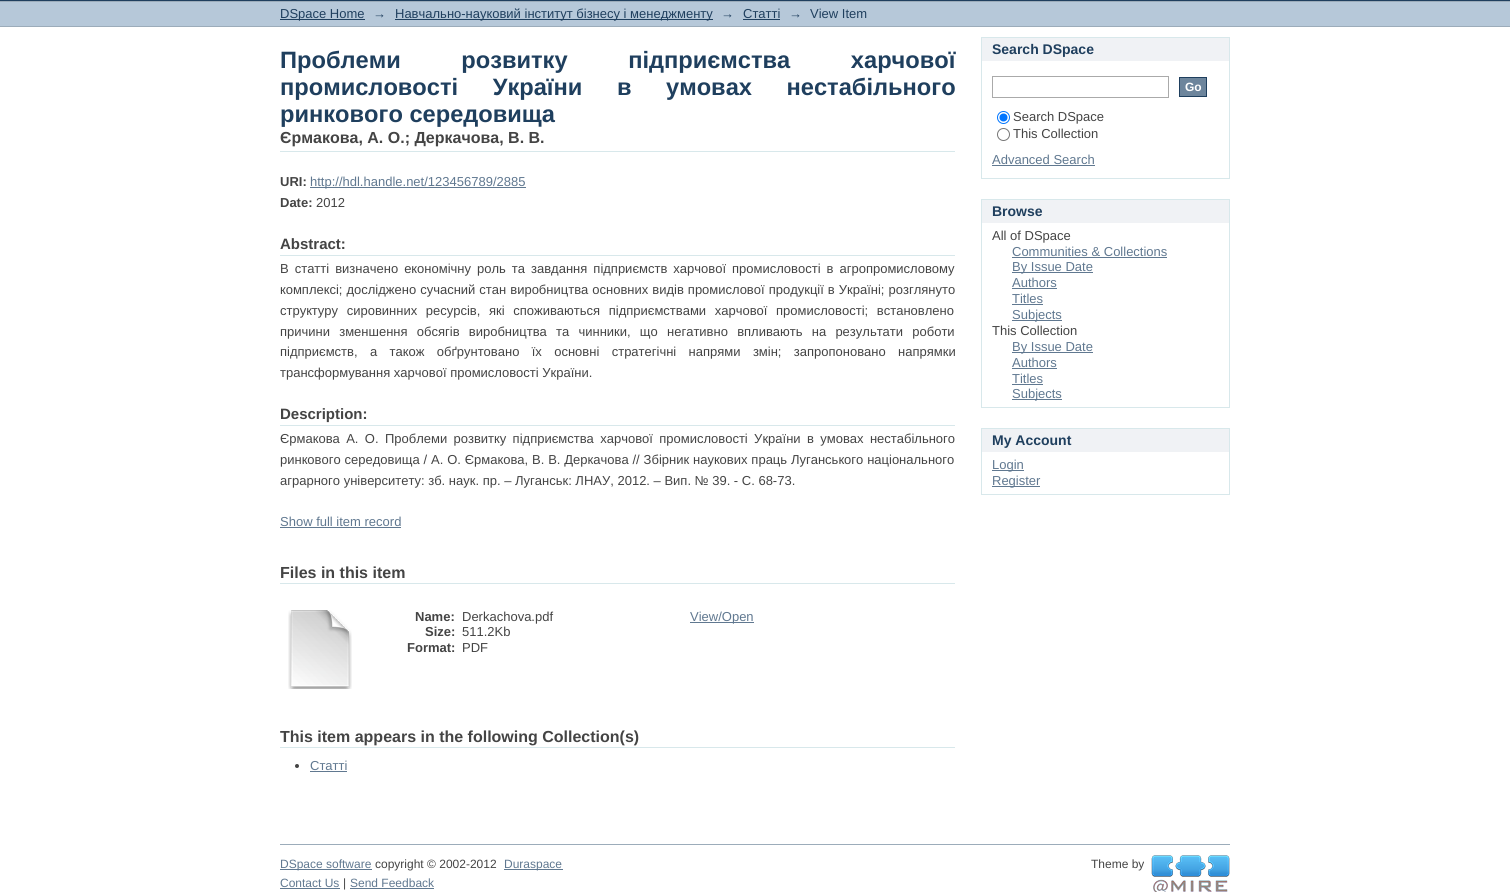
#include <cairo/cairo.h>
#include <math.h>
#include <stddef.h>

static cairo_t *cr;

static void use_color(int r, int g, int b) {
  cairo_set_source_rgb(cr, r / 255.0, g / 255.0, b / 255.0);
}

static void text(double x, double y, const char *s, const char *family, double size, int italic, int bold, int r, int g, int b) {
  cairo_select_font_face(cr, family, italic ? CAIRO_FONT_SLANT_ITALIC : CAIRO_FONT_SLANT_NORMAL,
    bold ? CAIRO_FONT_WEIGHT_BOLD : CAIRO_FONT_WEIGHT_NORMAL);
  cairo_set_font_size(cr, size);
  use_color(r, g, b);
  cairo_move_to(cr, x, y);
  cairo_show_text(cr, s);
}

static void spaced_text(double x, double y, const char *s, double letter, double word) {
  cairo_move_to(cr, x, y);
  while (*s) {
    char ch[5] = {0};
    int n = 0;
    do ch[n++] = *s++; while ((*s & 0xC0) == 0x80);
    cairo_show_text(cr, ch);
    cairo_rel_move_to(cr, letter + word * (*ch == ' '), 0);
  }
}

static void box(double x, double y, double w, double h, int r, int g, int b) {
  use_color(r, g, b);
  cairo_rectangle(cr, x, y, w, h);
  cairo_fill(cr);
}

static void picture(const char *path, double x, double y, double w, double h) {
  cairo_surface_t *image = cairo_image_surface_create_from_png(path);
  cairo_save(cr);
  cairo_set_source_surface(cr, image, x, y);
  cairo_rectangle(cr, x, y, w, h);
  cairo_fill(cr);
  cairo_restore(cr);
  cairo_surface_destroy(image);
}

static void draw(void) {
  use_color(255, 255, 255);
  cairo_paint(cr);
  box(0, 0, 1510, 1, 31, 63, 94);
  box(0, 2, 1510, 24, 182, 200, 217);
  box(0, 1, 1510, 1, 156, 172, 186);
  box(0, 26, 1510, 1, 156, 172, 186);
  box(280, 19, 85, 1, 31, 63, 94);
  box(395, 19, 318, 1, 31, 63, 94);
  box(743, 19, 37, 1, 31, 63, 94);
  box(280, 151, 675, 1, 216, 232, 235);
  box(310, 187, 216, 1, 96, 120, 144);
  box(280, 255, 675, 1, 216, 232, 235);
  box(280, 425, 675, 1, 216, 232, 235);
  box(280, 527, 121, 1, 96, 120, 144);
  box(280, 583, 675, 1, 216, 232, 235);
  picture("img_01.png", 288, 610, 64, 79);
  box(690, 622, 64, 1, 96, 120, 144);
  box(280, 747, 675, 1, 216, 232, 235);
  use_color(68, 68, 68);
  cairo_arc(cr, 297, 766, 2, 0, 2 * M_PI);
  cairo_fill(cr);
  box(310, 771, 37, 1, 96, 120, 144);
  box(982, 38, 247, 23, 240, 242, 245);
  box(981, 37, 249, 1, 216, 232, 235);
  box(1229, 37, 1, 142, 216, 232, 235);
  box(981, 37, 1, 24, 216, 232, 235);
  box(981, 178, 249, 1, 216, 232, 235);
  box(981, 61, 1, 118, 216, 232, 235);
  cairo_rectangle(cr, 992.5, 76.5, 176, 21);
  use_color(170, 170, 170);
  cairo_set_line_width(cr, 1);
  cairo_stroke(cr);
  use_color(109, 133, 156);
  cairo_rectangle(cr, 1179.5, 77.5, 27, 19);
  cairo_fill_preserve(cr);
  use_color(31, 63, 94);
  cairo_stroke(cr);
  cairo_arc(cr, 1003.5, 117.5, 6, 0, 2 * M_PI);
  use_color(0, 117, 255);
  cairo_stroke(cr);
  cairo_arc(cr, 1003.5, 117.5, 4, 0, 2 * M_PI);
  cairo_fill(cr);
  cairo_arc(cr, 1003.5, 134.5, 6, 0, 2 * M_PI);
  use_color(118, 118, 118);
  cairo_stroke(cr);
  box(992, 165, 103, 1, 96, 120, 144);
  box(982, 200, 247, 23, 240, 242, 245);
  box(981, 199, 249, 1, 216, 232, 235);
  box(1229, 199, 1, 209, 216, 232, 235);
  box(981, 199, 1, 24, 216, 232, 235);
  box(981, 407, 249, 1, 216, 232, 235);
  box(981, 223, 1, 185, 216, 232, 235);
  box(1012, 257, 155, 1, 96, 120, 144);
  box(1012, 272, 81, 1, 96, 120, 144);
  box(1012, 288, 45, 1, 96, 120, 144);
  box(1012, 304, 31, 1, 96, 120, 144);
  box(1012, 320, 50, 1, 96, 120, 144);
  box(1012, 352, 81, 1, 96, 120, 144);
  box(1012, 368, 45, 1, 96, 120, 144);
  box(1012, 384, 31, 1, 96, 120, 144);
  box(1012, 399, 50, 1, 96, 120, 144);
  box(982, 429, 247, 23, 240, 242, 245);
  box(981, 428, 249, 1, 216, 232, 235);
  box(1229, 428, 1, 67, 216, 232, 235);
  box(981, 428, 1, 24, 216, 232, 235);
  box(981, 494, 249, 1, 216, 232, 235);
  box(981, 452, 1, 43, 216, 232, 235);
  box(992, 470, 32, 1, 96, 120, 144);
  box(992, 486, 48, 1, 96, 120, 144);
  box(280, 844, 950, 1, 156, 172, 186);
  box(280, 869, 92, 1, 96, 120, 144);
  box(504, 869, 59, 1, 96, 120, 144);
  picture("img_02.png", 1151, 855, 79, 37);
  box(280, 888, 60, 1, 96, 120, 144);
  box(350, 888, 84, 1, 96, 120, 144);
  text(280, 18, "DSpace Home", "Liberation Sans", 13, 0, 0, 31, 63, 94);
  text(373, 18, "→", "Liberation Sans", 13, 0, 0, 31, 63, 94);
  text(395, 18, "Навчально-науковий інститут бізнесу і менеджменту", "Liberation Sans", 13, 0, 0, 31, 63, 94);
  text(721, 18, "→", "Liberation Sans", 13, 0, 0, 31, 63, 94);
  text(743, 18, "Статті", "Liberation Sans", 13, 0, 0, 31, 63, 94);
  text(789, 18, "→", "Liberation Sans", 13, 0, 0, 31, 63, 94);
  text(810, 18, "View Item", "Liberation Sans", 13, 0, 0, 31, 63, 94);
  cairo_select_font_face(cr, "Liberation Sans", CAIRO_FONT_SLANT_NORMAL, CAIRO_FONT_WEIGHT_BOLD);
  cairo_set_font_size(cr, 23.65);
  spaced_text(280, 68, "Проблеми розвитку підприємства харчової", 0, 54);
  spaced_text(280, 95, "промисловості України в умовах нестабільного", 0, 28);
  text(280, 122, "ринкового середовища", "Liberation Sans", 23.65, 0, 1, 31, 63, 94);
  text(280, 143, "Єрмакова, А. О.; Деркачова, В. В.", "Liberation Sans", 16, 0, 1, 68, 68, 68);
  text(280, 186, "URI:", "Liberation Sans", 13, 0, 1, 68, 68, 68);
  text(310, 186, "http://hdl.handle.net/123456789/2885", "Liberation Sans", 13, 0, 0, 96, 120, 144);
  text(280, 207, "Date:", "Liberation Sans", 13, 0, 1, 68, 68, 68);
  text(316, 207, "2012", "Liberation Sans", 13, 0, 0, 68, 68, 68);
  text(280, 249, "Abstract:", "Liberation Sans", 15, 0, 1, 68, 68, 68);
  cairo_select_font_face(cr, "Liberation Sans", CAIRO_FONT_SLANT_NORMAL, CAIRO_FONT_WEIGHT_NORMAL);
  cairo_set_font_size(cr, 13);
  spaced_text(280, 273, "В статті визначено економічну роль та завдання підприємств харчової промисловості в агропромисловому", 0, 2.4);
  spaced_text(280, 294, "комплексі; досліджено сучасний стан виробництва основних видів промислової продукції в Україні; розглянуто", 0, 0.4);
  spaced_text(280, 315, "структуру сировинних ресурсів, які споживаються підприємствами харчової промисловості; встановлено", 0, 5);
  spaced_text(280, 336, "причини зменшення обсягів виробництва та чинники, що негативно впливають на результати роботи", 0, 5.6);
  spaced_text(280, 356, "підприємств, а також обґрунтовано їх основні стратегічні напрями змін; запропоновано напрямки", 0, 8.75);
  text(280, 377, "трансформування харчової промисловості України.", "Liberation Sans", 13, 0, 0, 68, 68, 68);
  text(280, 419, "Description:", "Liberation Sans", 15, 0, 1, 68, 68, 68);
  cairo_select_font_face(cr, "Liberation Sans", CAIRO_FONT_SLANT_NORMAL, CAIRO_FONT_WEIGHT_NORMAL);
  cairo_set_font_size(cr, 13);
  spaced_text(280, 443, "Єрмакова А. О. Проблеми розвитку підприємства харчової промисловості України в умовах нестабільного", 0, 2.75);
  spaced_text(280, 464, "ринкового середовища / А. О. Єрмакова, В. В. Деркачова // Збірник наукових праць Луганського національного", 0, 0.25);
  text(280, 485, "аграрного університету: зб. наук. пр. – Луганськ: ЛНАУ, 2012. – Вип. № 39. - С. 68-73.", "Liberation Sans", 13, 0, 0, 68, 68, 68);
  text(280, 526, "Show full item record", "Liberation Sans", 13, 0, 0, 96, 120, 144);
  text(280, 578, "Files in this item", "Liberation Sans", 16, 0, 1, 68, 68, 68);
  text(415, 621, "Name:", "Liberation Sans", 13, 0, 1, 68, 68, 68);
  text(462, 621, "Derkachova.pdf", "Liberation Sans", 13, 0, 0, 68, 68, 68);
  text(425, 636, "Size:", "Liberation Sans", 13, 0, 1, 68, 68, 68);
  text(462, 636, "511.2Kb", "Liberation Sans", 13, 0, 0, 68, 68, 68);
  text(407, 652, "Format:", "Liberation Sans", 13, 0, 1, 68, 68, 68);
  text(462, 652, "PDF", "Liberation Sans", 13, 0, 0, 68, 68, 68);
  text(690, 621, "View/Open", "Liberation Sans", 13, 0, 0, 96, 120, 144);
  text(280, 742, "This item appears in the following Collection(s)", "Liberation Sans", 16, 0, 1, 68, 68, 68);
  text(310, 770, "Статті", "Liberation Sans", 13, 0, 0, 96, 120, 144);
  text(992, 54, "Search DSpace", "Liberation Sans", 14, 0, 1, 31, 63, 94);
  text(1185, 91, "Go", "Liberation Sans", 12, 0, 1, 255, 255, 255);
  text(1013, 121, "Search DSpace", "Liberation Sans", 13, 0, 0, 68, 68, 68);
  text(1013, 138, "This Collection", "Liberation Sans", 13, 0, 0, 68, 68, 68);
  text(992, 164, "Advanced Search", "Liberation Sans", 13, 0, 0, 96, 120, 144);
  text(992, 216, "Browse", "Liberation Sans", 14, 0, 1, 31, 63, 94);
  text(992, 240, "All of DSpace", "Liberation Sans", 13, 0, 0, 68, 68, 68);
  text(1012, 256, "Communities & Collections", "Liberation Sans", 13, 0, 0, 96, 120, 144);
  text(1012, 271, "By Issue Date", "Liberation Sans", 13, 0, 0, 96, 120, 144);
  text(1012, 287, "Authors", "Liberation Sans", 13, 0, 0, 96, 120, 144);
  text(1012, 303, "Titles", "Liberation Sans", 13, 0, 0, 96, 120, 144);
  text(1012, 319, "Subjects", "Liberation Sans", 13, 0, 0, 96, 120, 144);
  text(992, 335, "This Collection", "Liberation Sans", 13, 0, 0, 68, 68, 68);
  text(1012, 351, "By Issue Date", "Liberation Sans", 13, 0, 0, 96, 120, 144);
  text(1012, 367, "Authors", "Liberation Sans", 13, 0, 0, 96, 120, 144);
  text(1012, 383, "Titles", "Liberation Sans", 13, 0, 0, 96, 120, 144);
  text(1012, 398, "Subjects", "Liberation Sans", 13, 0, 0, 96, 120, 144);
  text(992, 445, "My Account", "Liberation Sans", 14, 0, 1, 31, 63, 94);
  text(992, 469, "Login", "Liberation Sans", 13, 0, 0, 96, 120, 144);
  text(992, 485, "Register", "Liberation Sans", 13, 0, 0, 96, 120, 144);
  text(280, 868, "DSpace software", "Liberation Sans", 12, 0, 0, 96, 120, 144);
  text(375, 868, "copyright © 2002-2012", "Liberation Sans", 12, 0, 0, 68, 68, 68);
  text(504, 868, "Duraspace", "Liberation Sans", 12, 0, 0, 96, 120, 144);
  text(1091, 868, "Theme by", "Liberation Sans", 12, 0, 0, 68, 68, 68);
  text(280, 887, "Contact Us", "Liberation Sans", 12, 0, 0, 96, 120, 144);
  text(343, 887, "|", "Liberation Sans", 12, 0, 0, 68, 68, 68);
  text(350, 887, "Send Feedback", "Liberation Sans", 12, 0, 0, 96, 120, 144);
}

int main(void) {
  cairo_surface_t *surface = cairo_image_surface_create(CAIRO_FORMAT_RGB24, 1510, 892);
  cr = cairo_create(surface);
  cairo_font_options_t *options = cairo_font_options_create();
  cairo_font_options_set_hint_metrics(options, CAIRO_HINT_METRICS_OFF);
  cairo_font_options_set_hint_style(options, CAIRO_HINT_STYLE_NONE);
  cairo_set_font_options(cr, options);
  cairo_set_miter_limit(cr, 4);
  draw();
  cairo_surface_write_to_png(surface, "out.png");
  cairo_font_options_destroy(options);
  cairo_destroy(cr);
  cairo_surface_destroy(surface);
  return 0;
}
